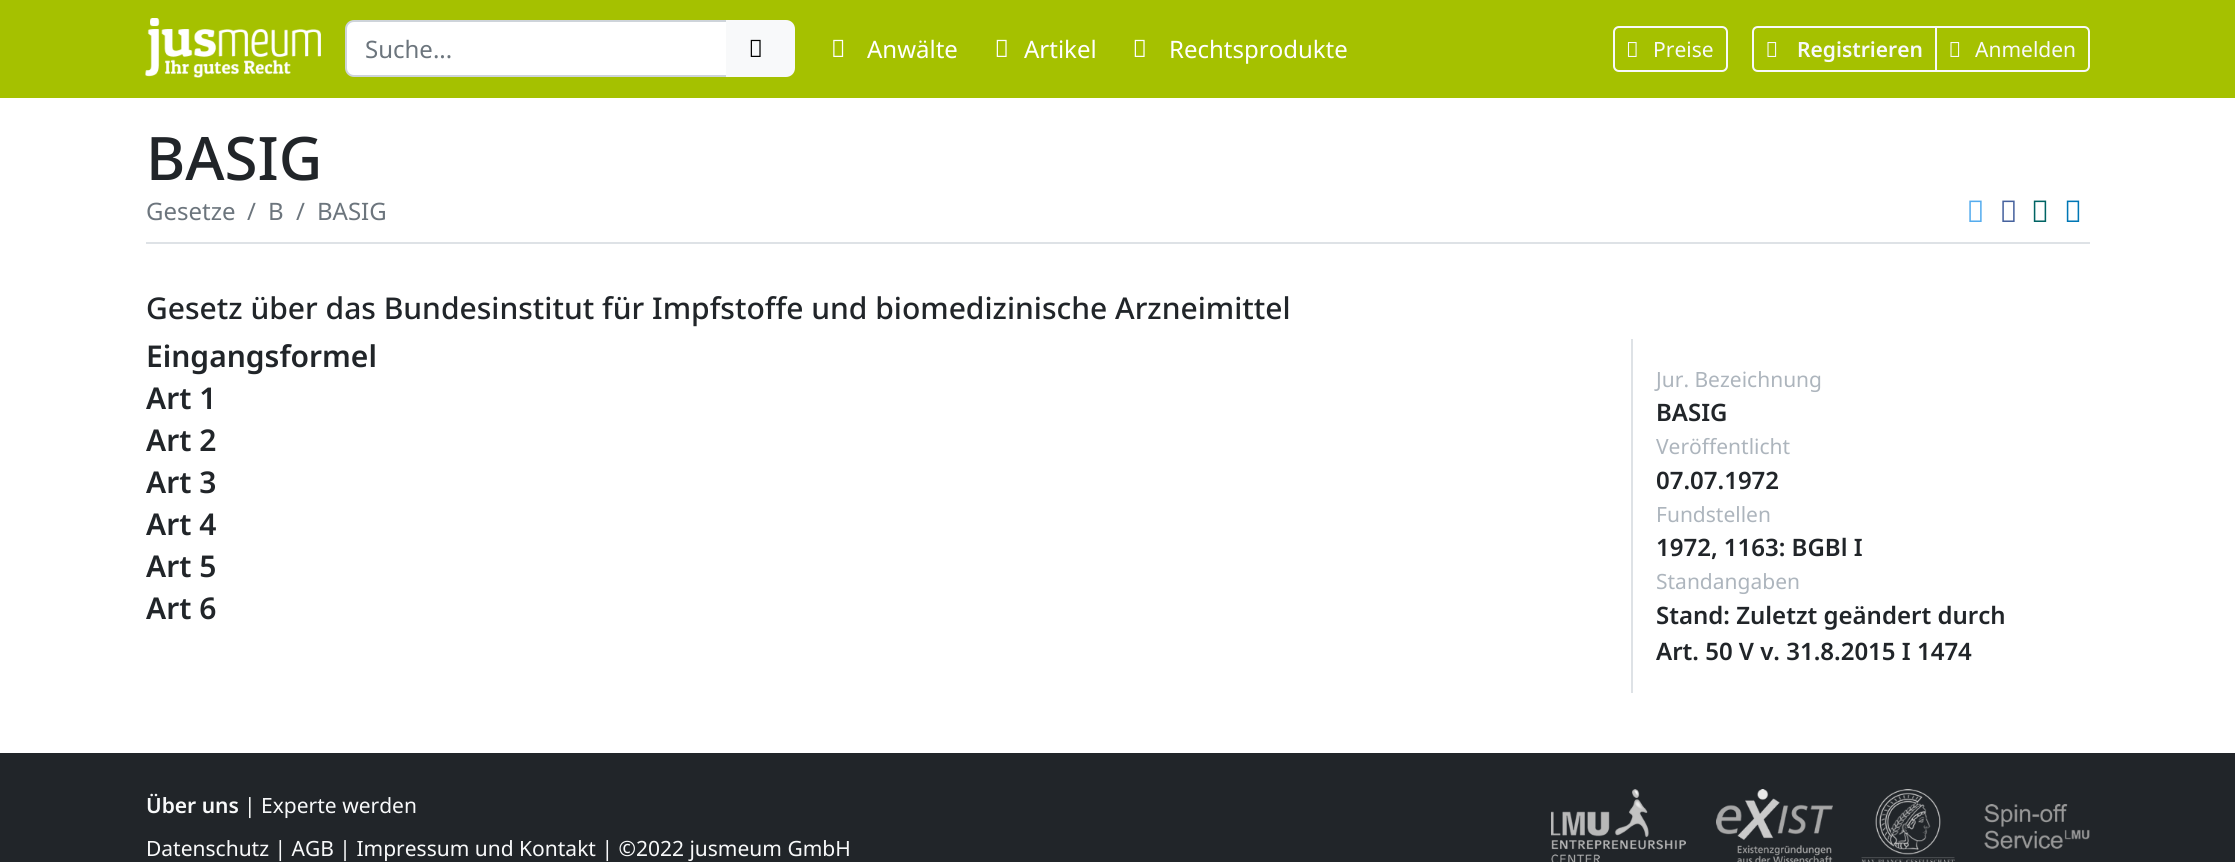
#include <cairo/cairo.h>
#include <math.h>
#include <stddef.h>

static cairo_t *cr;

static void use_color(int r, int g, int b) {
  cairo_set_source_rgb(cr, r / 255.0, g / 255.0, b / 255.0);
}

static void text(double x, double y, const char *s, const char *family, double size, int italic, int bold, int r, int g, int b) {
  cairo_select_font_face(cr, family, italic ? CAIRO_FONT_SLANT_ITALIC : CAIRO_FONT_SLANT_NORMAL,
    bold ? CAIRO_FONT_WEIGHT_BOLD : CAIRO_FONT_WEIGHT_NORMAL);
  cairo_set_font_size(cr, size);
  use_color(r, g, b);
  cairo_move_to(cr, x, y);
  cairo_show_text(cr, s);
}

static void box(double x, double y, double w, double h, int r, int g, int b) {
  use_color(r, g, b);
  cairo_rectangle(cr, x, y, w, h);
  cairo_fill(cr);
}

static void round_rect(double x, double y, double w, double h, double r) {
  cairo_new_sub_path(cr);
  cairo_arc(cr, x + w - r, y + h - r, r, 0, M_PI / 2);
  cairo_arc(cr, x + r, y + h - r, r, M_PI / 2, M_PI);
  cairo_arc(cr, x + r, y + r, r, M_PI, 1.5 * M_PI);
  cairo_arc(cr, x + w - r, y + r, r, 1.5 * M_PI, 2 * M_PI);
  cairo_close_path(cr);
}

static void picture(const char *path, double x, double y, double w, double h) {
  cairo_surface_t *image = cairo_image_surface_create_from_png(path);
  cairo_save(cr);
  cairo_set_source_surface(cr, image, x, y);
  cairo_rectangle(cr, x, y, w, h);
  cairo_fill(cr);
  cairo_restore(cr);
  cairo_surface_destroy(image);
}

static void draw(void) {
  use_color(255, 255, 255);
  cairo_paint(cr);
  box(0, 0, 2235, 98, 165, 193, 0);
  picture("img_01.png", 145, 18, 176, 60);
  use_color(255, 255, 255);
  cairo_new_path(cr);
  cairo_move_to(cr, 354, 21);
  cairo_line_to(cr, 727, 21);
  cairo_line_to(cr, 727, 76);
  cairo_line_to(cr, 354, 76);
  cairo_curve_to(cr, 349.5, 76, 346, 72.5, 346, 68);
  cairo_line_to(cr, 346, 29);
  cairo_curve_to(cr, 346, 24.5, 349.5, 21, 354, 21);
  cairo_close_path(cr);
  cairo_fill_preserve(cr);
  use_color(206, 212, 218);
  cairo_stroke(cr);
  use_color(248, 249, 250);
  cairo_new_path(cr);
  cairo_move_to(cr, 727, 21);
  cairo_line_to(cr, 786, 21);
  cairo_curve_to(cr, 790.5, 21, 794, 24.5, 794, 29);
  cairo_line_to(cr, 794, 68);
  cairo_curve_to(cr, 794, 72.5, 790.5, 76, 786, 76);
  cairo_line_to(cr, 727, 76);
  cairo_close_path(cr);
  cairo_fill_preserve(cr);
  cairo_stroke(cr);
  picture("img_02.png", 750, 39, 11, 18);
  picture("img_03.png", 833, 39, 11, 18);
  picture("img_04.png", 996, 39, 11, 18);
  picture("img_04.png", 1134, 39, 11, 18);
  round_rect(1614, 27, 113, 44, 5);
  cairo_stroke(cr);
  picture("img_05.png", 1627, 42, 10, 15);
  cairo_new_path(cr);
  cairo_move_to(cr, 1758, 27);
  cairo_line_to(cr, 1936, 27);
  cairo_line_to(cr, 1936, 71);
  cairo_line_to(cr, 1758, 71);
  cairo_curve_to(cr, 1755, 71, 1753, 69, 1753, 66);
  cairo_line_to(cr, 1753, 32);
  cairo_curve_to(cr, 1753, 29, 1755, 27, 1758, 27);
  cairo_close_path(cr);
  cairo_stroke(cr);
  picture("img_06.png", 1767, 42, 10, 15);
  cairo_new_path(cr);
  cairo_move_to(cr, 1936, 27);
  cairo_line_to(cr, 2084, 27);
  cairo_curve_to(cr, 2087, 27, 2089, 29, 2089, 32);
  cairo_line_to(cr, 2089, 66);
  cairo_curve_to(cr, 2089, 69, 2087, 71, 2084, 71);
  cairo_line_to(cr, 1936, 71);
  cairo_close_path(cr);
  cairo_stroke(cr);
  picture("img_06.png", 1950, 42, 10, 15);
  box(146, 242, 1944, 2, 222, 226, 230);
  picture("img_07.png", 1969, 200, 13, 22);
  picture("img_08.png", 2002, 200, 13, 22);
  picture("img_09.png", 2033, 200, 14, 22);
  picture("img_10.png", 2066, 200, 14, 22);
  box(1631, 339, 2, 354, 222, 226, 230);
  box(0, 753, 2235, 109, 33, 37, 41);
  picture("img_11.png", 1551, 789, 135, 73);
  picture("img_12.png", 1716, 789, 117, 73);
  picture("img_13.png", 1861, 789, 94, 73);
  picture("img_14.png", 1984, 804, 106, 45);
  text(365, 58, "Suche...", "Noto Sans", 24, 0, 0, 108, 117, 125);
  text(867, 58, "Anwälte", "Noto Sans", 24, 0, 0, 255, 255, 255);
  text(1024, 58, "Artikel", "Noto Sans", 24, 0, 0, 255, 255, 255);
  text(1169, 58, "Rechtsprodukte", "Noto Sans", 24, 0, 0, 255, 255, 255);
  text(1653, 57, "Preise", "Noto Sans", 21, 0, 0, 248, 249, 250);
  text(1797, 57, "Registrieren", "Noto Sans SemiBold", 21, 0, 0, 248, 249, 250);
  text(1975, 57, "Anmelden", "Noto Sans", 21, 0, 0, 248, 249, 250);
  text(146, 180, "BASIG", "Noto Sans Medium", 60, 0, 0, 33, 37, 41);
  text(146, 220, "Gesetze", "Noto Sans", 24, 0, 0, 108, 117, 125);
  text(247, 220, "/", "Noto Sans", 24, 0, 0, 108, 117, 125);
  text(268, 220, "B", "Noto Sans", 24, 0, 0, 108, 117, 125);
  text(296, 220, "/", "Noto Sans", 24, 0, 0, 108, 117, 125);
  text(317, 220, "BASIG", "Noto Sans", 24, 0, 0, 108, 117, 125);
  text(146, 319, "Gesetz über das Bundesinstitut für Impfstoffe und biomedizinische Arzneimittel", "Noto Sans Medium", 30, 0, 0, 33, 37, 41);
  text(146, 367, "Eingangsformel", "Noto Sans SemiBold", 30, 0, 0, 33, 37, 41);
  text(146, 409, "Art 1", "Noto Sans SemiBold", 30, 0, 0, 33, 37, 41);
  text(146, 451, "Art 2", "Noto Sans SemiBold", 30, 0, 0, 33, 37, 41);
  text(146, 493, "Art 3", "Noto Sans SemiBold", 30, 0, 0, 33, 37, 41);
  text(146, 535, "Art 4", "Noto Sans SemiBold", 30, 0, 0, 33, 37, 41);
  text(146, 577, "Art 5", "Noto Sans SemiBold", 30, 0, 0, 33, 37, 41);
  text(146, 619, "Art 6", "Noto Sans SemiBold", 30, 0, 0, 33, 37, 41);
  text(1656, 387, "Jur. Bezeichnung", "Noto Sans", 21, 0, 0, 173, 181, 189);
  text(1656, 421, "BASIG", "Noto Sans SemiBold", 24, 0, 0, 33, 37, 41);
  text(1656, 454, "Veröffentlicht", "Noto Sans", 21, 0, 0, 173, 181, 189);
  text(1656, 489, "07.07.1972", "Noto Sans SemiBold", 24, 0, 0, 33, 37, 41);
  text(1656, 522, "Fundstellen", "Noto Sans", 21, 0, 0, 173, 181, 189);
  text(1656, 556, "1972, 1163: BGBl I", "Noto Sans SemiBold", 24, 0, 0, 33, 37, 41);
  text(1656, 589, "Standangaben", "Noto Sans", 21, 0, 0, 173, 181, 189);
  text(1656, 624, "Stand: Zuletzt geändert durch", "Noto Sans SemiBold", 24, 0, 0, 33, 37, 41);
  text(1656, 660, "Art. 50 V v. 31.8.2015 I 1474", "Noto Sans SemiBold", 24, 0, 0, 33, 37, 41);
  text(146, 813, "Über uns", "Noto Sans SemiBold", 21, 0, 0, 248, 249, 250);
  text(244, 813, "| Experte werden", "Noto Sans", 21, 0, 0, 248, 249, 250);
  text(146, 856, "Datenschutz | AGB | Impressum und Kontakt | ©2022 jusmeum GmbH", "Noto Sans", 21, 0, 0, 248, 249, 250);
}

int main(void) {
  cairo_surface_t *surface = cairo_image_surface_create(CAIRO_FORMAT_RGB24, 2235, 862);
  cr = cairo_create(surface);
  cairo_font_options_t *options = cairo_font_options_create();
  cairo_font_options_set_hint_metrics(options, CAIRO_HINT_METRICS_OFF);
  cairo_font_options_set_hint_style(options, CAIRO_HINT_STYLE_NONE);
  cairo_set_font_options(cr, options);
  cairo_set_miter_limit(cr, 4);
  draw();
  cairo_surface_write_to_png(surface, "out.png");
  cairo_font_options_destroy(options);
  cairo_destroy(cr);
  cairo_surface_destroy(surface);
  return 0;
}
